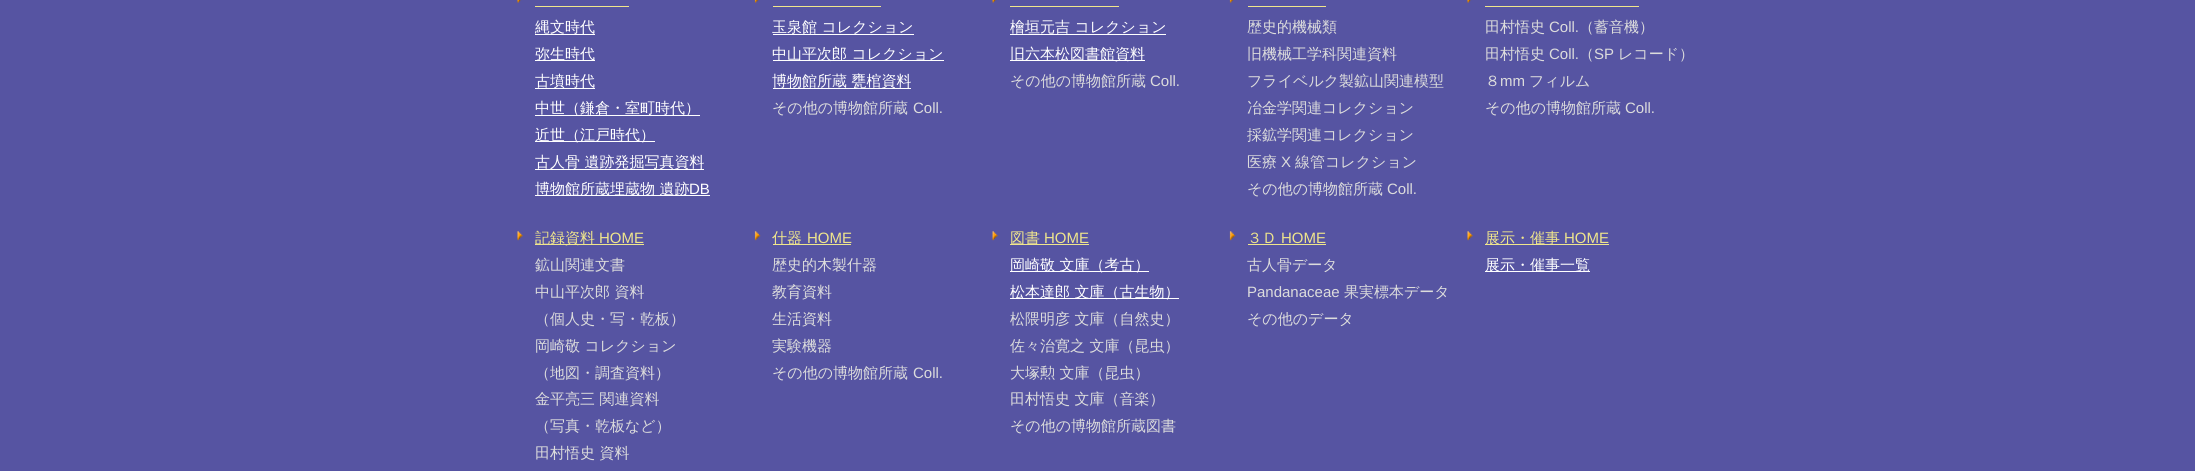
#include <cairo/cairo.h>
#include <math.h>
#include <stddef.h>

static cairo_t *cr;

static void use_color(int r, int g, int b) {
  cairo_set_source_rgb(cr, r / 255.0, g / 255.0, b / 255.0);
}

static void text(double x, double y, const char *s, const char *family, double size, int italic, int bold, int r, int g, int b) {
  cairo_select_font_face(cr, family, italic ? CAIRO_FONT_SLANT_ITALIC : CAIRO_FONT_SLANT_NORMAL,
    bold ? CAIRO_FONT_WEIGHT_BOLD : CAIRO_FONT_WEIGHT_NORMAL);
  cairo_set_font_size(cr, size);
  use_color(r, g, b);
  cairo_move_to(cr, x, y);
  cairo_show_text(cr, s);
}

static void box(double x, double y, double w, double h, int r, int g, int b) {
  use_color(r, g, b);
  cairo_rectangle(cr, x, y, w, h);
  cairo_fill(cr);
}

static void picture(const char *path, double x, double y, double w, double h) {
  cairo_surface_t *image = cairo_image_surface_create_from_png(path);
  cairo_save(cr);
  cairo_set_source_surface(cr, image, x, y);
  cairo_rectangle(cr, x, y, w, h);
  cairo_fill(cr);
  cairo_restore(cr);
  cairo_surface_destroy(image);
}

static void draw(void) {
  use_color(86, 84, 162);
  cairo_paint(cr);
  picture("img_01.png", 517, 0, 5, 3);
  box(535, 6, 94, 1, 240, 230, 140);
  box(535, 34, 60, 1, 255, 255, 255);
  box(535, 60, 60, 1, 255, 255, 255);
  box(535, 88, 60, 1, 255, 255, 255);
  box(535, 115, 165, 1, 255, 255, 255);
  box(535, 141, 120, 1, 255, 255, 255);
  box(535, 169, 169, 1, 255, 255, 255);
  box(535, 195, 175, 1, 255, 255, 255);
  picture("img_02.png", 754, 0, 5, 3);
  box(773, 6, 108, 1, 240, 230, 140);
  box(773, 34, 141, 1, 255, 255, 255);
  box(773, 60, 171, 1, 255, 255, 255);
  box(773, 88, 138, 1, 255, 255, 255);
  picture("img_03.png", 992, 0, 5, 3);
  box(1010, 6, 109, 1, 240, 230, 140);
  box(1010, 34, 156, 1, 255, 255, 255);
  box(1010, 60, 135, 1, 255, 255, 255);
  picture("img_04.png", 1229, 0, 5, 3);
  box(1248, 6, 78, 1, 240, 230, 140);
  picture("img_01.png", 1467, 0, 5, 3);
  box(1485, 6, 154, 1, 240, 230, 140);
  picture("img_05.png", 517, 231, 6, 10);
  box(535, 244, 109, 1, 240, 230, 140);
  picture("img_06.png", 754, 231, 7, 10);
  box(773, 244, 78, 1, 240, 230, 140);
  picture("img_07.png", 992, 231, 6, 10);
  box(1010, 244, 79, 1, 240, 230, 140);
  box(1010, 271, 139, 1, 255, 255, 255);
  box(1010, 298, 169, 1, 255, 255, 255);
  picture("img_08.png", 1229, 231, 7, 10);
  box(1248, 244, 78, 1, 240, 230, 140);
  picture("img_05.png", 1467, 231, 6, 10);
  box(1485, 244, 124, 1, 240, 230, 140);
  box(1485, 271, 105, 1, 255, 255, 255);
  text(535, 32, "縄文時代", "WenQuanYi Zen Hei Medium", 15, 0, 0, 255, 255, 255);
  text(535, 59, "弥生時代", "WenQuanYi Zen Hei Medium", 15, 0, 0, 255, 255, 255);
  text(535, 86, "古墳時代", "WenQuanYi Zen Hei Medium", 15, 0, 0, 255, 255, 255);
  text(535, 113, "中世（鎌倉・室町時代）", "WenQuanYi Zen Hei Medium", 15, 0, 0, 255, 255, 255);
  text(535, 140, "近世（江戸時代）", "WenQuanYi Zen Hei Medium", 15, 0, 0, 255, 255, 255);
  text(535, 167, "古人骨 遺跡発掘写真資料", "WenQuanYi Zen Hei Medium", 15, 0, 0, 255, 255, 255);
  text(535, 194, "博物館所蔵埋蔵物 遺跡", "WenQuanYi Zen Hei Medium", 15, 0, 0, 255, 255, 255);
  text(689, 194, "DB", "Liberation Sans", 15, 0, 0, 255, 255, 255);
  text(772, 32, "玉泉館 コレクション", "WenQuanYi Zen Hei Medium", 15, 0, 0, 255, 255, 255);
  text(772, 59, "中山平次郎 コレクション", "WenQuanYi Zen Hei Medium", 15, 0, 0, 255, 255, 255);
  text(772, 86, "博物館所蔵 甕棺資料", "WenQuanYi Zen Hei Medium", 15, 0, 0, 255, 255, 255);
  text(772, 113, "その他の博物館所蔵", "WenQuanYi Zen Hei Medium", 15, 0, 0, 220, 220, 220);
  text(913, 113, "Coll.", "Liberation Sans", 15, 0, 0, 220, 220, 220);
  text(1010, 32, "檜垣元吉 コレクション", "WenQuanYi Zen Hei Medium", 15, 0, 0, 255, 255, 255);
  text(1010, 59, "旧六本松図書館資料", "WenQuanYi Zen Hei Medium", 15, 0, 0, 255, 255, 255);
  text(1010, 86, "その他の博物館所蔵", "WenQuanYi Zen Hei Medium", 15, 0, 0, 220, 220, 220);
  text(1150, 86, "Coll.", "Liberation Sans", 15, 0, 0, 220, 220, 220);
  text(1247, 32, "歴史的機械類", "WenQuanYi Zen Hei Medium", 15, 0, 0, 220, 220, 220);
  text(1247, 59, "旧機械工学科関連資料", "WenQuanYi Zen Hei Medium", 15, 0, 0, 220, 220, 220);
  text(1247, 86, "フライベルク製鉱山関連模型", "WenQuanYi Zen Hei Medium", 15, 0, 0, 220, 220, 220);
  text(1247, 113, "冶金学関連コレクション", "WenQuanYi Zen Hei Medium", 15, 0, 0, 220, 220, 220);
  text(1247, 140, "採鉱学関連コレクション", "WenQuanYi Zen Hei Medium", 15, 0, 0, 220, 220, 220);
  text(1247, 167, "医療", "WenQuanYi Zen Hei Medium", 15, 0, 0, 220, 220, 220);
  text(1281, 167, "X", "Liberation Sans", 15, 0, 0, 220, 220, 220);
  text(1295, 167, "線管コレクション", "WenQuanYi Zen Hei Medium", 15, 0, 0, 220, 220, 220);
  text(1247, 194, "その他の博物館所蔵", "WenQuanYi Zen Hei Medium", 15, 0, 0, 220, 220, 220);
  text(1387, 194, "Coll.", "Liberation Sans", 15, 0, 0, 220, 220, 220);
  text(1485, 32, "田村悟史", "WenQuanYi Zen Hei Medium", 15, 0, 0, 220, 220, 220);
  text(1549, 32, "Coll.", "Liberation Sans", 15, 0, 0, 220, 220, 220);
  text(1579, 32, "（蓄音機）", "WenQuanYi Zen Hei Medium", 15, 0, 0, 220, 220, 220);
  text(1485, 59, "田村悟史", "WenQuanYi Zen Hei Medium", 15, 0, 0, 220, 220, 220);
  text(1549, 59, "Coll.", "Liberation Sans", 15, 0, 0, 220, 220, 220);
  text(1579, 59, "（", "WenQuanYi Zen Hei Medium", 15, 0, 0, 220, 220, 220);
  text(1594, 59, "SP", "Liberation Sans", 15, 0, 0, 220, 220, 220);
  text(1618, 59, "レコード）", "WenQuanYi Zen Hei Medium", 15, 0, 0, 220, 220, 220);
  text(1485, 86, "８", "WenQuanYi Zen Hei Medium", 15, 0, 0, 220, 220, 220);
  text(1500, 86, "mm", "Liberation Sans", 15, 0, 0, 220, 220, 220);
  text(1529, 86, "フィルム", "WenQuanYi Zen Hei Medium", 15, 0, 0, 220, 220, 220);
  text(1485, 113, "その他の博物館所蔵", "WenQuanYi Zen Hei Medium", 15, 0, 0, 220, 220, 220);
  text(1625, 113, "Coll.", "Liberation Sans", 15, 0, 0, 220, 220, 220);
  text(535, 243, "記録資料", "WenQuanYi Zen Hei Medium", 15, 0, 0, 240, 230, 140);
  text(599, 243, "HOME", "Liberation Sans", 15, 0, 0, 240, 230, 140);
  text(535, 270, "鉱山関連文書", "WenQuanYi Zen Hei Medium", 15, 0, 0, 220, 220, 220);
  text(535, 297, "中山平次郎 資料", "WenQuanYi Zen Hei Medium", 15, 0, 0, 220, 220, 220);
  text(535, 324, "（個人史・写・乾板）", "WenQuanYi Zen Hei Medium", 15, 0, 0, 220, 220, 220);
  text(535, 351, "岡崎敬 コレクション", "WenQuanYi Zen Hei Medium", 15, 0, 0, 220, 220, 220);
  text(535, 378, "（地図・調査資料）", "WenQuanYi Zen Hei Medium", 15, 0, 0, 220, 220, 220);
  text(535, 404, "金平亮三 関連資料", "WenQuanYi Zen Hei Medium", 15, 0, 0, 220, 220, 220);
  text(535, 431, "（写真・乾板など）", "WenQuanYi Zen Hei Medium", 15, 0, 0, 220, 220, 220);
  text(535, 458, "田村悟史 資料", "WenQuanYi Zen Hei Medium", 15, 0, 0, 220, 220, 220);
  text(772, 243, "什器", "WenQuanYi Zen Hei Medium", 15, 0, 0, 240, 230, 140);
  text(807, 243, "HOME", "Liberation Sans", 15, 0, 0, 240, 230, 140);
  text(772, 270, "歴史的木製什器", "WenQuanYi Zen Hei Medium", 15, 0, 0, 220, 220, 220);
  text(772, 297, "教育資料", "WenQuanYi Zen Hei Medium", 15, 0, 0, 220, 220, 220);
  text(772, 324, "生活資料", "WenQuanYi Zen Hei Medium", 15, 0, 0, 220, 220, 220);
  text(772, 351, "実験機器", "WenQuanYi Zen Hei Medium", 15, 0, 0, 220, 220, 220);
  text(772, 378, "その他の博物館所蔵", "WenQuanYi Zen Hei Medium", 15, 0, 0, 220, 220, 220);
  text(913, 378, "Coll.", "Liberation Sans", 15, 0, 0, 220, 220, 220);
  text(1010, 243, "図書", "WenQuanYi Zen Hei Medium", 15, 0, 0, 240, 230, 140);
  text(1044, 243, "HOME", "Liberation Sans", 15, 0, 0, 240, 230, 140);
  text(1010, 270, "岡崎敬 文庫（考古）", "WenQuanYi Zen Hei Medium", 15, 0, 0, 255, 255, 255);
  text(1010, 297, "松本達郎 文庫（古生物）", "WenQuanYi Zen Hei Medium", 15, 0, 0, 255, 255, 255);
  text(1010, 324, "松隈明彦 文庫（自然史）", "WenQuanYi Zen Hei Medium", 15, 0, 0, 220, 220, 220);
  text(1010, 351, "佐々治寛之 文庫（昆虫）", "WenQuanYi Zen Hei Medium", 15, 0, 0, 220, 220, 220);
  text(1010, 378, "大塚勲 文庫（昆虫）", "WenQuanYi Zen Hei Medium", 15, 0, 0, 220, 220, 220);
  text(1010, 404, "田村悟史 文庫（音楽）", "WenQuanYi Zen Hei Medium", 15, 0, 0, 220, 220, 220);
  text(1010, 431, "その他の博物館所蔵図書", "WenQuanYi Zen Hei Medium", 15, 0, 0, 220, 220, 220);
  text(1247, 243, "３Ｄ", "WenQuanYi Zen Hei Medium", 15, 0, 0, 240, 230, 140);
  text(1281, 243, "HOME", "Liberation Sans", 15, 0, 0, 240, 230, 140);
  text(1247, 270, "古人骨データ", "WenQuanYi Zen Hei Medium", 15, 0, 0, 220, 220, 220);
  text(1247, 297, "Pandanaceae", "Liberation Sans", 15, 0, 0, 220, 220, 220);
  text(1344, 297, "果実標本データ", "WenQuanYi Zen Hei Medium", 15, 0, 0, 220, 220, 220);
  text(1247, 324, "その他のデータ", "WenQuanYi Zen Hei Medium", 15, 0, 0, 220, 220, 220);
  text(1485, 243, "展示・催事", "WenQuanYi Zen Hei Medium", 15, 0, 0, 240, 230, 140);
  text(1564, 243, "HOME", "Liberation Sans", 15, 0, 0, 240, 230, 140);
  text(1485, 270, "展示・催事一覧", "WenQuanYi Zen Hei Medium", 15, 0, 0, 255, 255, 255);
}

int main(void) {
  cairo_surface_t *surface = cairo_image_surface_create(CAIRO_FORMAT_RGB24, 2195, 471);
  cr = cairo_create(surface);
  cairo_font_options_t *options = cairo_font_options_create();
  cairo_font_options_set_hint_metrics(options, CAIRO_HINT_METRICS_OFF);
  cairo_font_options_set_hint_style(options, CAIRO_HINT_STYLE_NONE);
  cairo_set_font_options(cr, options);
  cairo_set_miter_limit(cr, 4);
  draw();
  cairo_surface_write_to_png(surface, "out.png");
  cairo_font_options_destroy(options);
  cairo_destroy(cr);
  cairo_surface_destroy(surface);
  return 0;
}
